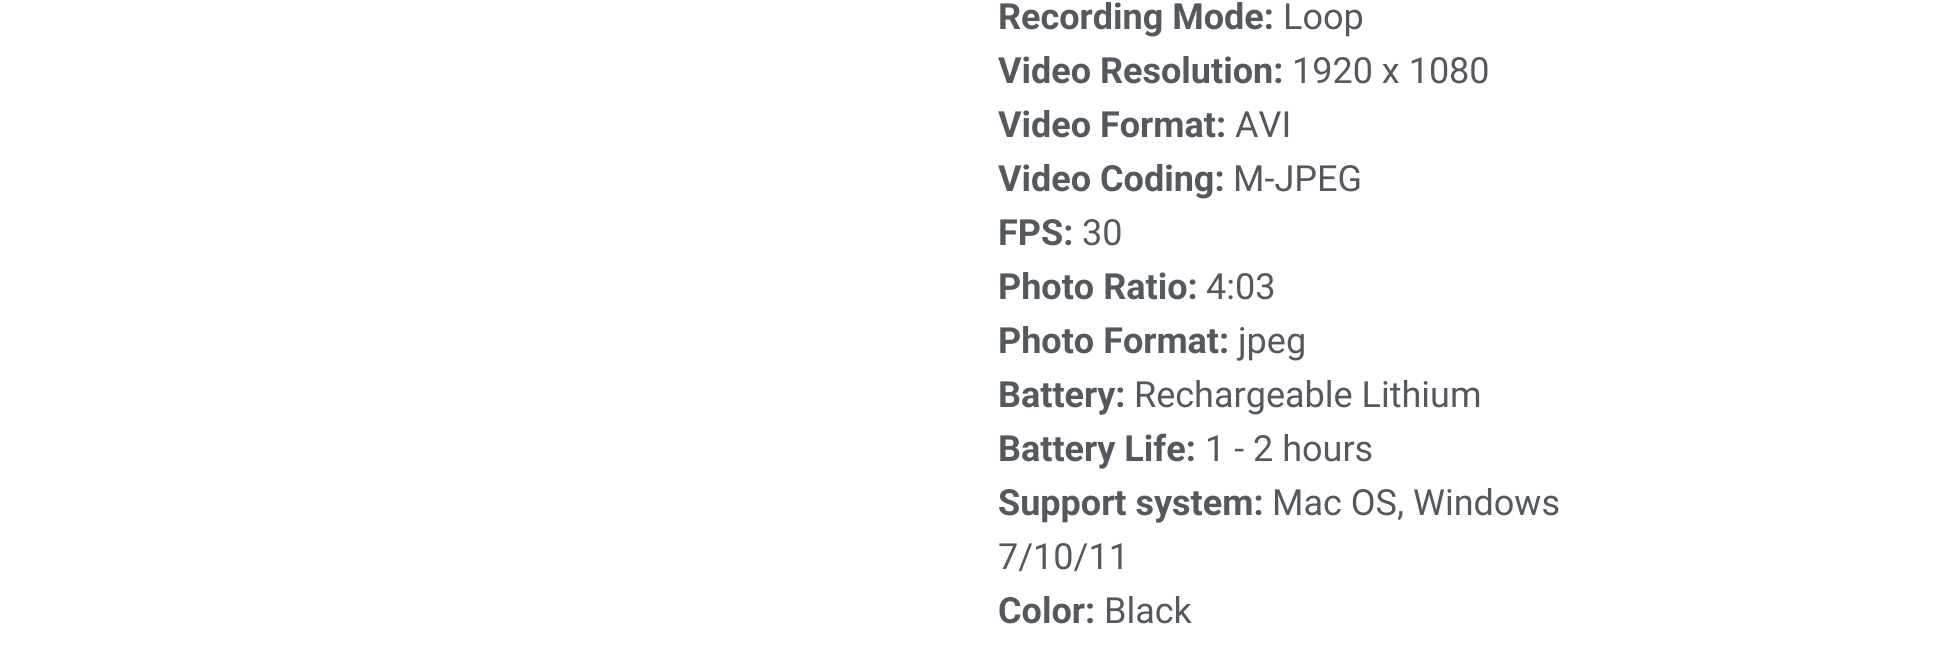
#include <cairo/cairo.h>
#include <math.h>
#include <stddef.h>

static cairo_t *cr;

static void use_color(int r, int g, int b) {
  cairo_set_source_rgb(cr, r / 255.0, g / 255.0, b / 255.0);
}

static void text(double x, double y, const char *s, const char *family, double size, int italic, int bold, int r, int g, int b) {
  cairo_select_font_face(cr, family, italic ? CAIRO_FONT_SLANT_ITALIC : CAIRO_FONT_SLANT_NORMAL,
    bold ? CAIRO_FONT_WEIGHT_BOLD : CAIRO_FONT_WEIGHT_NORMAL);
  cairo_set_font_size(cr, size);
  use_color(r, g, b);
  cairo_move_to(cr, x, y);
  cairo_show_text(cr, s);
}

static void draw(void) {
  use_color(255, 255, 255);
  cairo_paint(cr);
  text(998, 29, "Recording Mode:", "Roboto", 36, 0, 1, 84, 89, 95);
  text(1283, 29, "Loop", "Roboto", 36, 0, 0, 84, 89, 95);
  text(998, 83, "Video Resolution:", "Roboto", 36, 0, 1, 84, 89, 95);
  text(1292, 83, "1920 x 1080", "Roboto", 36, 0, 0, 84, 89, 95);
  text(998, 137, "Video Format:", "Roboto", 36, 0, 1, 84, 89, 95);
  text(1235, 137, "AVI", "Roboto", 36, 0, 0, 84, 89, 95);
  text(998, 191, "Video Coding:", "Roboto", 36, 0, 1, 84, 89, 95);
  text(1233, 191, "M-JPEG", "Roboto", 36, 0, 0, 84, 89, 95);
  text(998, 245, "FPS:", "Roboto", 36, 0, 1, 84, 89, 95);
  text(1082, 245, "30", "Roboto", 36, 0, 0, 84, 89, 95);
  text(998, 299, "Photo Ratio:", "Roboto", 36, 0, 1, 84, 89, 95);
  text(1206, 299, "4:03", "Roboto", 36, 0, 0, 84, 89, 95);
  text(998, 353, "Photo Format:", "Roboto", 36, 0, 1, 84, 89, 95);
  text(1238, 353, "jpeg", "Roboto", 36, 0, 0, 84, 89, 95);
  text(998, 407, "Battery:", "Roboto", 36, 0, 1, 84, 89, 95);
  text(1134, 407, "Rechargeable Lithium", "Roboto", 36, 0, 0, 84, 89, 95);
  text(998, 461, "Battery Life:", "Roboto", 36, 0, 1, 84, 89, 95);
  text(1205, 461, "1 - 2 hours", "Roboto", 36, 0, 0, 84, 89, 95);
  text(998, 515, "Support system:", "Roboto", 36, 0, 1, 84, 89, 95);
  text(1272, 515, "Mac OS, Windows", "Roboto", 36, 0, 0, 84, 89, 95);
  text(998, 569, "7/10/11", "Roboto", 36, 0, 0, 84, 89, 95);
  text(998, 623, "Color:", "Roboto", 36, 0, 1, 84, 89, 95);
  text(1104, 623, "Black", "Roboto", 36, 0, 0, 84, 89, 95);
}

int main(void) {
  cairo_surface_t *surface = cairo_image_surface_create(CAIRO_FORMAT_RGB24, 1941, 652);
  cr = cairo_create(surface);
  cairo_font_options_t *options = cairo_font_options_create();
  cairo_font_options_set_hint_metrics(options, CAIRO_HINT_METRICS_OFF);
  cairo_font_options_set_hint_style(options, CAIRO_HINT_STYLE_NONE);
  cairo_set_font_options(cr, options);
  cairo_set_miter_limit(cr, 4);
  draw();
  cairo_surface_write_to_png(surface, "out.png");
  cairo_font_options_destroy(options);
  cairo_destroy(cr);
  cairo_surface_destroy(surface);
  return 0;
}
